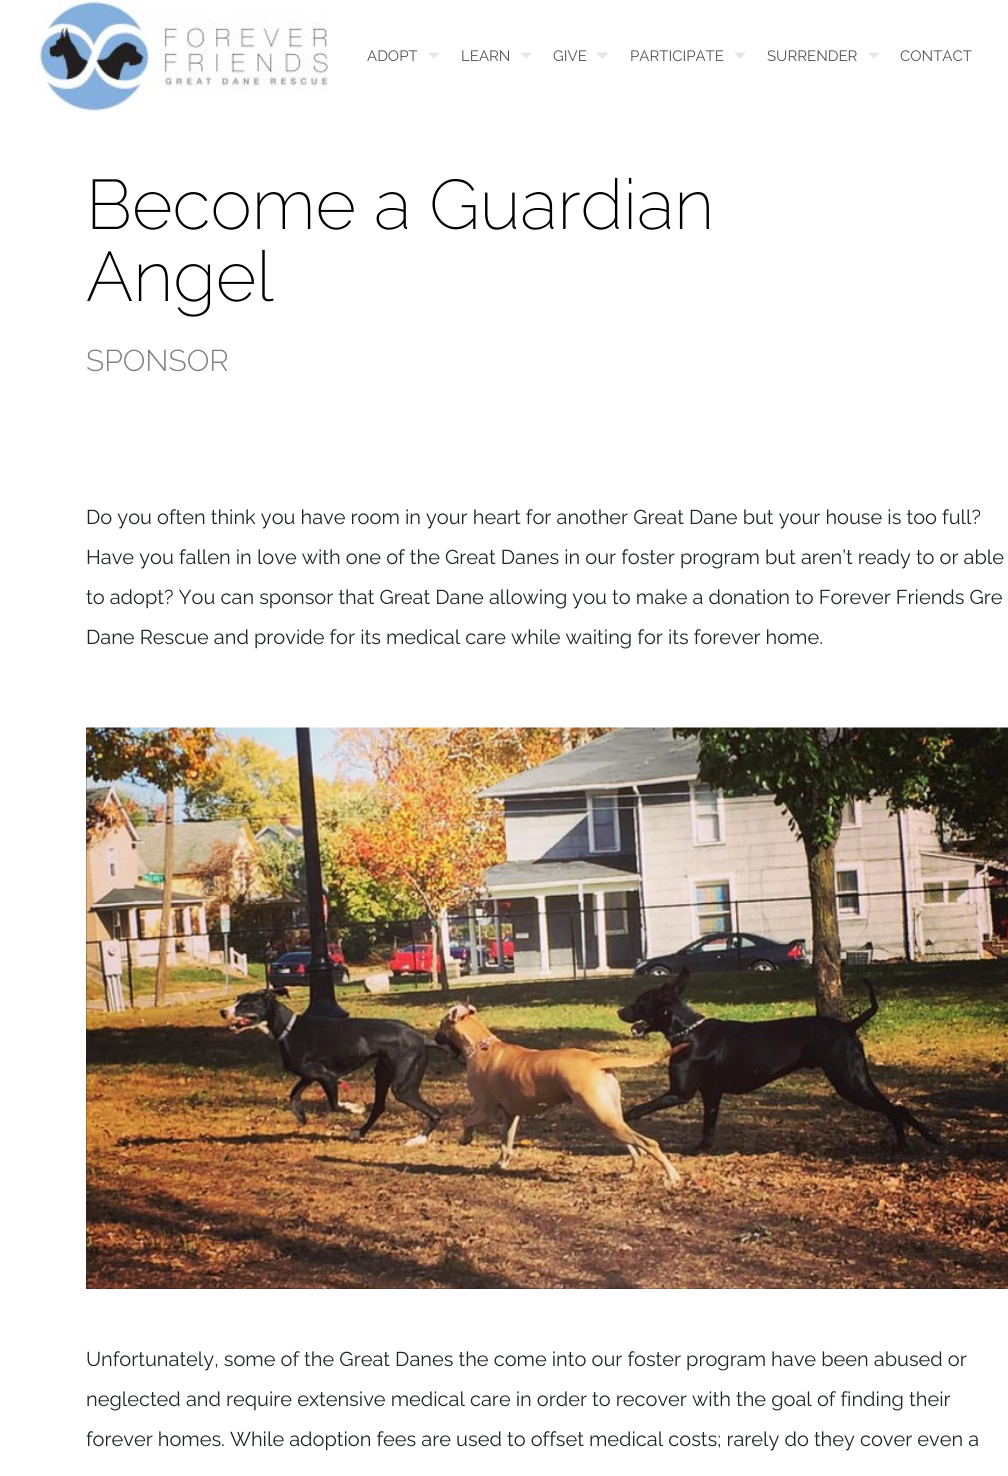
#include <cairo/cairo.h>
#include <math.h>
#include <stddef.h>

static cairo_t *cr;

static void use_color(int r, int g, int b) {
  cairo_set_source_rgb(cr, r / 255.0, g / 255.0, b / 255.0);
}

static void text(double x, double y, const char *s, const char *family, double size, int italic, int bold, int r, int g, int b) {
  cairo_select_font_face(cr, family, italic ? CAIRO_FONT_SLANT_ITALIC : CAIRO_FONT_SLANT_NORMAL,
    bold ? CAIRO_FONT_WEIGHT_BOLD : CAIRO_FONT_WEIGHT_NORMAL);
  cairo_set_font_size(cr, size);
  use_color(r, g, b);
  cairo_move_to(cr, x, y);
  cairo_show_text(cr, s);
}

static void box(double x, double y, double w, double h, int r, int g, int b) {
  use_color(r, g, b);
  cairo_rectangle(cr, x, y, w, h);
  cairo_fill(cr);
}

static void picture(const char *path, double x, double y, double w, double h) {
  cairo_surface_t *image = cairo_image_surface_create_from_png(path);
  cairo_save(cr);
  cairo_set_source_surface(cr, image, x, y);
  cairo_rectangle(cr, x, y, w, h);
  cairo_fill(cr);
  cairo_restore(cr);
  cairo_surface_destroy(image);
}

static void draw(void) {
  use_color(255, 255, 255);
  cairo_paint(cr);
  picture("img_01.png", 37, 0, 291, 113);
  use_color(230, 230, 230);
  cairo_new_path(cr);
  cairo_move_to(cr, 427.5, 52.5);
  cairo_line_to(cr, 440, 52.5);
  cairo_line_to(cr, 434, 59);
  cairo_close_path(cr);
  cairo_fill(cr);
  cairo_new_path(cr);
  cairo_move_to(cr, 520, 52.5);
  cairo_line_to(cr, 532.5, 52.5);
  cairo_line_to(cr, 526, 59);
  cairo_close_path(cr);
  cairo_fill(cr);
  cairo_new_path(cr);
  cairo_move_to(cr, 596, 52.5);
  cairo_line_to(cr, 609, 52.5);
  cairo_line_to(cr, 602.5, 59);
  cairo_close_path(cr);
  cairo_fill(cr);
  cairo_new_path(cr);
  cairo_move_to(cr, 734, 52.5);
  cairo_line_to(cr, 746, 52.5);
  cairo_line_to(cr, 740, 59);
  cairo_close_path(cr);
  cairo_fill(cr);
  cairo_new_path(cr);
  cairo_move_to(cr, 867.5, 52.5);
  cairo_line_to(cr, 880, 52.5);
  cairo_line_to(cr, 874, 59);
  cairo_close_path(cr);
  cairo_fill(cr);
  box(86, 728, 922, 561, 34, 34, 34);
  picture("img_02.png", 86, 727, 922, 562);
  text(367, 61, "ADOPT", "Raleway", 15, 0, 0, 85, 85, 85);
  text(461, 61, "LEARN", "Raleway", 15, 0, 0, 85, 85, 85);
  text(553, 61, "GIVE", "Raleway", 15, 0, 0, 85, 85, 85);
  text(630, 61, "PARTICIPATE", "Raleway", 15, 0, 0, 85, 85, 85);
  text(767, 61, "SURRENDER", "Raleway", 15, 0, 0, 85, 85, 85);
  text(900, 61, "CONTACT", "Raleway", 15, 0, 0, 85, 85, 85);
  text(86, 229, "Become a Guardian", "Raleway ExtraLight", 70, 0, 0, 0, 0, 0);
  text(86, 301, "Angel", "Raleway ExtraLight", 70, 0, 0, 0, 0, 0);
  text(86, 371, "SPONSOR", "Raleway Light", 30, 0, 0, 128, 128, 128);
  text(86, 524, "Do you often think you have room in your heart for another Great Dane but your house is too full?", "Raleway", 20, 0, 0, 33, 37, 41);
  text(86, 564, "Have you fallen in love with one of the Great Danes in our foster program but aren’t ready to or able", "Raleway", 20, 0, 0, 33, 37, 41);
  text(86, 604, "to adopt? You can sponsor that Great Dane allowing you to make a donation to Forever Friends Gre", "Raleway", 20, 0, 0, 33, 37, 41);
  text(86, 644, "Dane Rescue and provide for its medical care while waiting for its forever home.", "Raleway", 20, 0, 0, 33, 37, 41);
  text(86, 1366, "Unfortunately, some of the Great Danes the come into our foster program have been abused or", "Raleway", 20, 0, 0, 33, 37, 41);
  text(86, 1406, "neglected and require extensive medical care in order to recover with the goal of finding their", "Raleway", 20, 0, 0, 33, 37, 41);
  text(86, 1446, "forever homes. While adoption fees are used to offset medical costs; rarely do they cover even a", "Raleway", 20, 0, 0, 33, 37, 41);
}

int main(void) {
  cairo_surface_t *surface = cairo_image_surface_create(CAIRO_FORMAT_RGB24, 1008, 1476);
  cr = cairo_create(surface);
  cairo_font_options_t *options = cairo_font_options_create();
  cairo_font_options_set_hint_metrics(options, CAIRO_HINT_METRICS_OFF);
  cairo_font_options_set_hint_style(options, CAIRO_HINT_STYLE_NONE);
  cairo_set_font_options(cr, options);
  cairo_set_miter_limit(cr, 4);
  draw();
  cairo_surface_write_to_png(surface, "out.png");
  cairo_font_options_destroy(options);
  cairo_destroy(cr);
  cairo_surface_destroy(surface);
  return 0;
}
